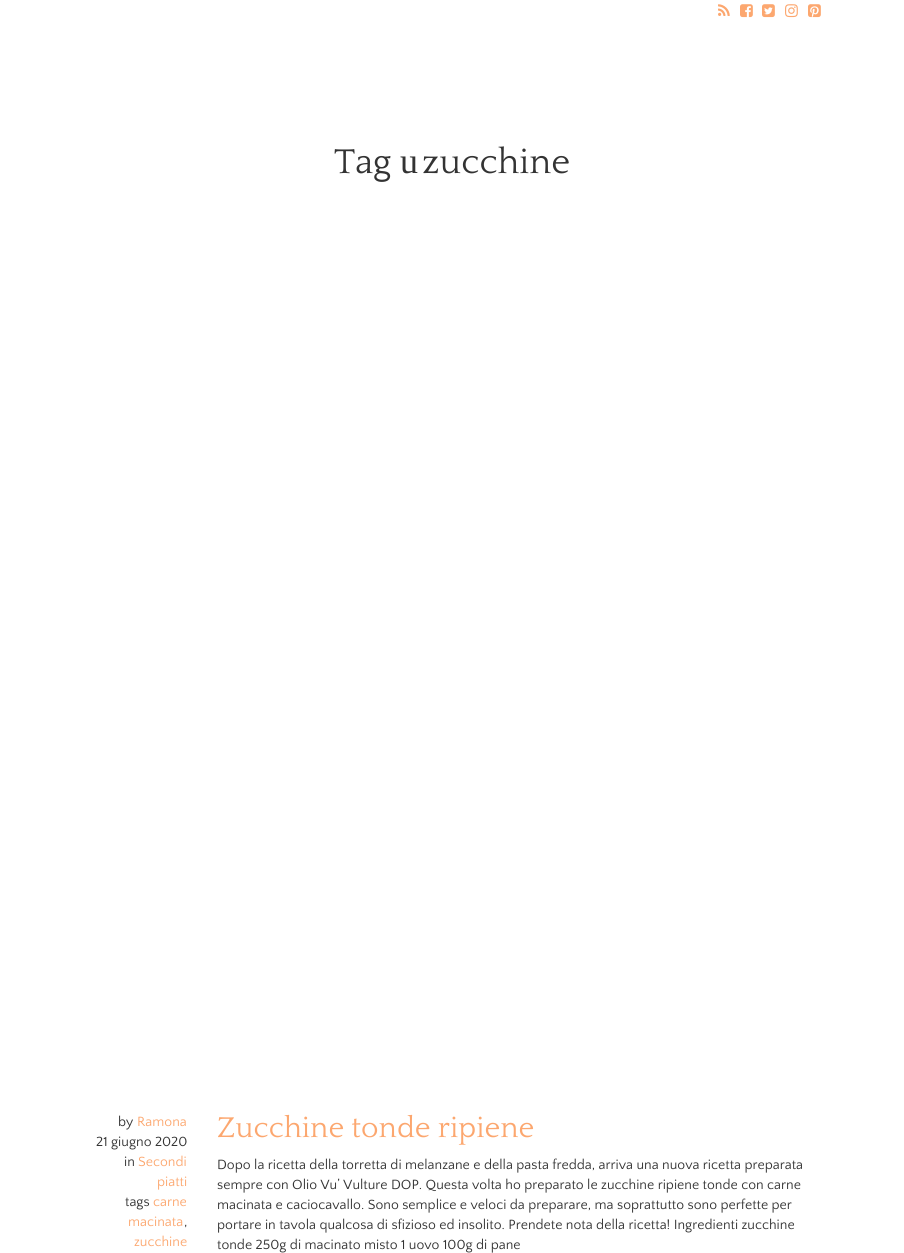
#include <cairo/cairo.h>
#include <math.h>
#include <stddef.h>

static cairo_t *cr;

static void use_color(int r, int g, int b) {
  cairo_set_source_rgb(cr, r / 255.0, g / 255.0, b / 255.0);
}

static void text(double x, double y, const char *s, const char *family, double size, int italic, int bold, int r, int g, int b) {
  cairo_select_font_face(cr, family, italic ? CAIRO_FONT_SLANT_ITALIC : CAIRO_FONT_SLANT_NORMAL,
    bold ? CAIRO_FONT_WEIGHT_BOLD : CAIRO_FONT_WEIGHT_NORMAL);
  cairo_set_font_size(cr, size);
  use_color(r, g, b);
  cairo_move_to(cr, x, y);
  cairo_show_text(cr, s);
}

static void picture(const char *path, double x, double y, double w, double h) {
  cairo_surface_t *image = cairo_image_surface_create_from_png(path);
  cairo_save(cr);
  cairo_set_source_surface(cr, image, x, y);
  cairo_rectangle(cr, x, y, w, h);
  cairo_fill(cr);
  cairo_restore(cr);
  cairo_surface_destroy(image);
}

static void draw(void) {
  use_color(255, 255, 255);
  cairo_paint(cr);
  picture("img_01.png", 718, 4, 12, 12);
  picture("img_02.png", 740, 4, 13, 14);
  picture("img_03.png", 762, 4, 13, 14);
  picture("img_04.png", 785, 4, 13, 14);
  picture("img_05.png", 808, 4, 13, 14);
  text(334, 173, "Tag", "Quattrocento", 36, 0, 0, 51, 51, 51);
  text(400, 173, "u", "Liberation Serif", 36, 0, 0, 51, 51, 51);
  text(422, 173, "zucchine", "Quattrocento", 36, 0, 0, 51, 51, 51);
  text(118, 1126, "by", "Quattrocento Sans", 14, 0, 0, 51, 51, 51);
  text(137, 1126, "Ramona", "Quattrocento Sans", 14, 0, 0, 252, 167, 111);
  text(96, 1146, "21 giugno 2020", "Quattrocento Sans", 14, 0, 0, 51, 51, 51);
  text(124, 1166, "in", "Quattrocento Sans", 14, 0, 0, 51, 51, 51);
  text(138, 1166, "Secondi", "Quattrocento Sans", 14, 0, 0, 252, 167, 111);
  text(157, 1186, "piatti", "Quattrocento Sans", 14, 0, 0, 252, 167, 111);
  text(125, 1206, "tags", "Quattrocento Sans", 14, 0, 0, 51, 51, 51);
  text(153, 1206, "carne", "Quattrocento Sans", 14, 0, 0, 252, 167, 111);
  text(128, 1226, "macinata", "Quattrocento Sans", 14, 0, 0, 252, 167, 111);
  text(184, 1226, ",", "Quattrocento Sans", 14, 0, 0, 51, 51, 51);
  text(134, 1246, "zucchine", "Quattrocento Sans", 14, 0, 0, 252, 167, 111);
  text(217, 1137, "Zucchine tonde ripiene", "Quattrocento", 30, 0, 0, 252, 167, 111);
  text(217, 1169, "Dopo la ricetta della torretta di melanzane e della pasta fredda, arriva una nuova ricetta preparata", "Quattrocento Sans", 14, 0, 0, 51, 51, 51);
  text(217, 1189, "sempre con Olio Vu’ Vulture DOP. Questa volta ho preparato le zucchine ripiene tonde con carne", "Quattrocento Sans", 14, 0, 0, 51, 51, 51);
  text(217, 1209, "macinata e caciocavallo. Sono semplice e veloci da preparare, ma soprattutto sono perfette per", "Quattrocento Sans", 14, 0, 0, 51, 51, 51);
  text(217, 1229, "portare in tavola qualcosa di sfizioso ed insolito. Prendete nota della ricetta! Ingredienti zucchine", "Quattrocento Sans", 14, 0, 0, 51, 51, 51);
  text(217, 1249, "tonde 250g di macinato misto 1 uovo 100g di pane", "Quattrocento Sans", 14, 0, 0, 51, 51, 51);
}

int main(void) {
  cairo_surface_t *surface = cairo_image_surface_create(CAIRO_FORMAT_RGB24, 904, 1253);
  cr = cairo_create(surface);
  cairo_font_options_t *options = cairo_font_options_create();
  cairo_font_options_set_hint_metrics(options, CAIRO_HINT_METRICS_OFF);
  cairo_font_options_set_hint_style(options, CAIRO_HINT_STYLE_NONE);
  cairo_set_font_options(cr, options);
  cairo_set_miter_limit(cr, 4);
  draw();
  cairo_surface_write_to_png(surface, "out.png");
  cairo_font_options_destroy(options);
  cairo_destroy(cr);
  cairo_surface_destroy(surface);
  return 0;
}
